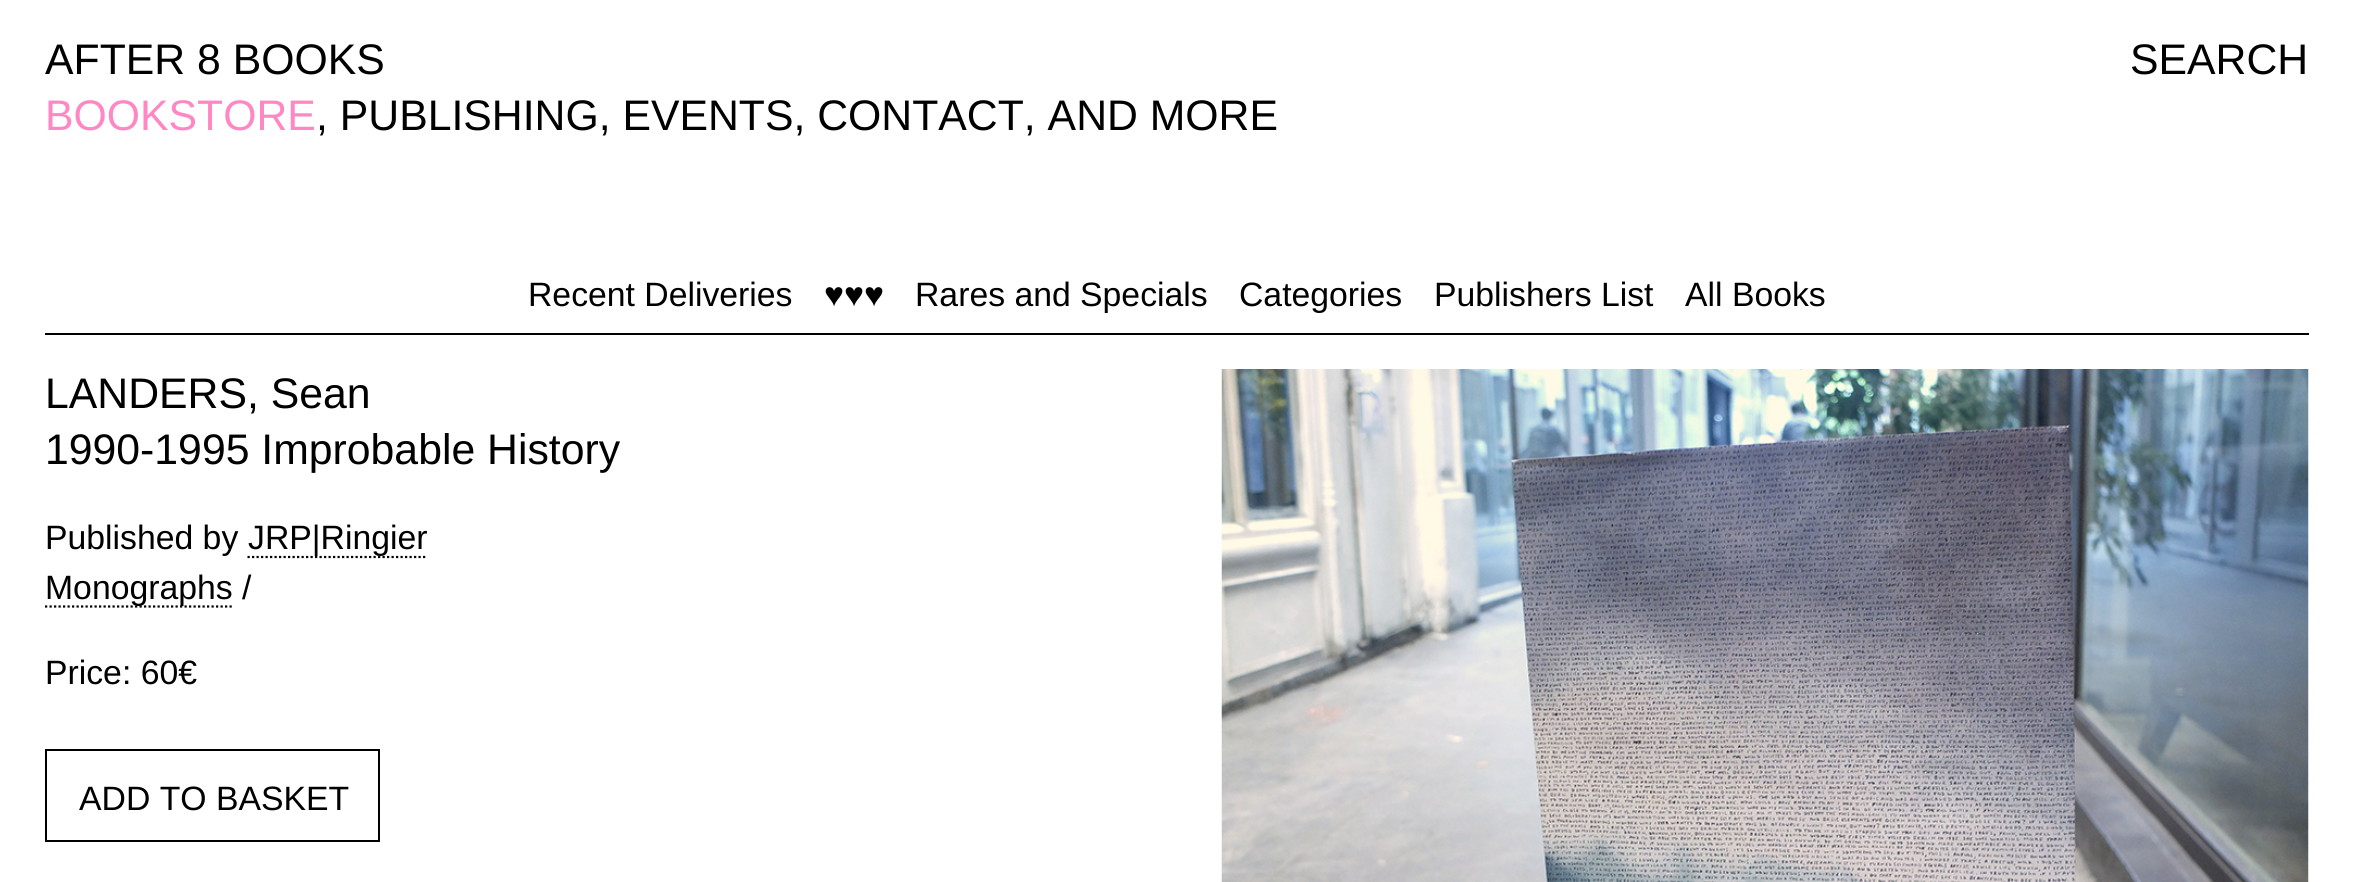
#include <cairo/cairo.h>
#include <math.h>
#include <stddef.h>

static cairo_t *cr;

static void use_color(int r, int g, int b) {
  cairo_set_source_rgb(cr, r / 255.0, g / 255.0, b / 255.0);
}

static void text(double x, double y, const char *s, const char *family, double size, int italic, int bold, int r, int g, int b) {
  cairo_select_font_face(cr, family, italic ? CAIRO_FONT_SLANT_ITALIC : CAIRO_FONT_SLANT_NORMAL,
    bold ? CAIRO_FONT_WEIGHT_BOLD : CAIRO_FONT_WEIGHT_NORMAL);
  cairo_set_font_size(cr, size);
  use_color(r, g, b);
  cairo_move_to(cr, x, y);
  cairo_show_text(cr, s);
}

static void box(double x, double y, double w, double h, int r, int g, int b) {
  use_color(r, g, b);
  cairo_rectangle(cr, x, y, w, h);
  cairo_fill(cr);
}

static void picture(const char *path, double x, double y, double w, double h) {
  cairo_surface_t *image = cairo_image_surface_create_from_png(path);
  cairo_save(cr);
  cairo_set_source_surface(cr, image, x, y);
  cairo_rectangle(cr, x, y, w, h);
  cairo_fill(cr);
  cairo_restore(cr);
  cairo_surface_destroy(image);
}

static void draw(void) {
  use_color(255, 255, 255);
  cairo_paint(cr);
  box(45, 333, 2264, 2, 0, 0, 0);
  cairo_new_path(cr);
  cairo_move_to(cr, 247.5, 557);
  cairo_line_to(cr, 427.5, 557);
  cairo_set_line_width(cr, 2.2);
  cairo_set_dash(cr, (double[]){2.25, 2.25}, 2, 0);
  cairo_stroke(cr);
  cairo_new_path(cr);
  cairo_move_to(cr, 45, 606.5);
  cairo_line_to(cr, 232, 606.5);
  cairo_stroke(cr);
  cairo_rectangle(cr, 46, 750, 333, 91);
  cairo_set_line_width(cr, 2);
  cairo_set_dash(cr, NULL, 0, 0);
  cairo_stroke(cr);
  picture("img_01.png", 1221, 369, 1088, 513);
  text(45, 74, "AFTER 8 BOOKS", "Liberation Sans", 42.75, 0, 0, 0, 0, 0);
  text(2130, 74, "SEARCH", "Liberation Sans", 42.75, 0, 0, 0, 0, 0);
  text(45, 130, "BOOKSTORE", "Liberation Sans", 42.75, 0, 0, 255, 135, 195);
  text(316, 130, ", PUBLISHING, EVENTS, CONTACT, AND MORE", "Liberation Sans", 42.75, 0, 0, 0, 0, 0);
  text(528, 306, "Recent Deliveries", "Liberation Sans", 33.75, 0, 0, 0, 0, 0);
  text(824, 306, "♥♥♥", "Liberation Sans", 33.75, 0, 0, 0, 0, 0);
  text(915, 306, "Rares and Specials", "Liberation Sans", 33.75, 0, 0, 0, 0, 0);
  text(1239, 306, "Categories", "Liberation Sans", 33.75, 0, 0, 0, 0, 0);
  text(1434, 306, "Publishers List", "Liberation Sans", 33.75, 0, 0, 0, 0, 0);
  text(1685, 306, "All Books", "Liberation Sans", 33.75, 0, 0, 0, 0, 0);
  text(45, 408, "LANDERS, Sean", "Liberation Sans", 42.75, 0, 0, 0, 0, 0);
  text(45, 464, "1990-1995 Improbable History", "Liberation Sans", 42.75, 0, 0, 0, 0, 0);
  text(45, 549, "Published by", "Liberation Sans", 33.75, 0, 0, 0, 0, 0);
  text(248, 549, "JRP|Ringier", "Liberation Sans", 33.75, 0, 0, 0, 0, 0);
  text(45, 599, "Monographs /", "Liberation Sans", 33.75, 0, 0, 0, 0, 0);
  text(45, 684, "Price: 60€", "Liberation Sans", 33.75, 0, 0, 0, 0, 0);
  text(79, 810, "ADD TO BASKET", "Liberation Sans", 33.75, 0, 0, 0, 0, 0);
}

int main(void) {
  cairo_surface_t *surface = cairo_image_surface_create(CAIRO_FORMAT_RGB24, 2353, 882);
  cr = cairo_create(surface);
  cairo_font_options_t *options = cairo_font_options_create();
  cairo_font_options_set_hint_metrics(options, CAIRO_HINT_METRICS_OFF);
  cairo_font_options_set_hint_style(options, CAIRO_HINT_STYLE_NONE);
  cairo_set_font_options(cr, options);
  cairo_set_miter_limit(cr, 4);
  draw();
  cairo_surface_write_to_png(surface, "out.png");
  cairo_font_options_destroy(options);
  cairo_destroy(cr);
  cairo_surface_destroy(surface);
  return 0;
}
